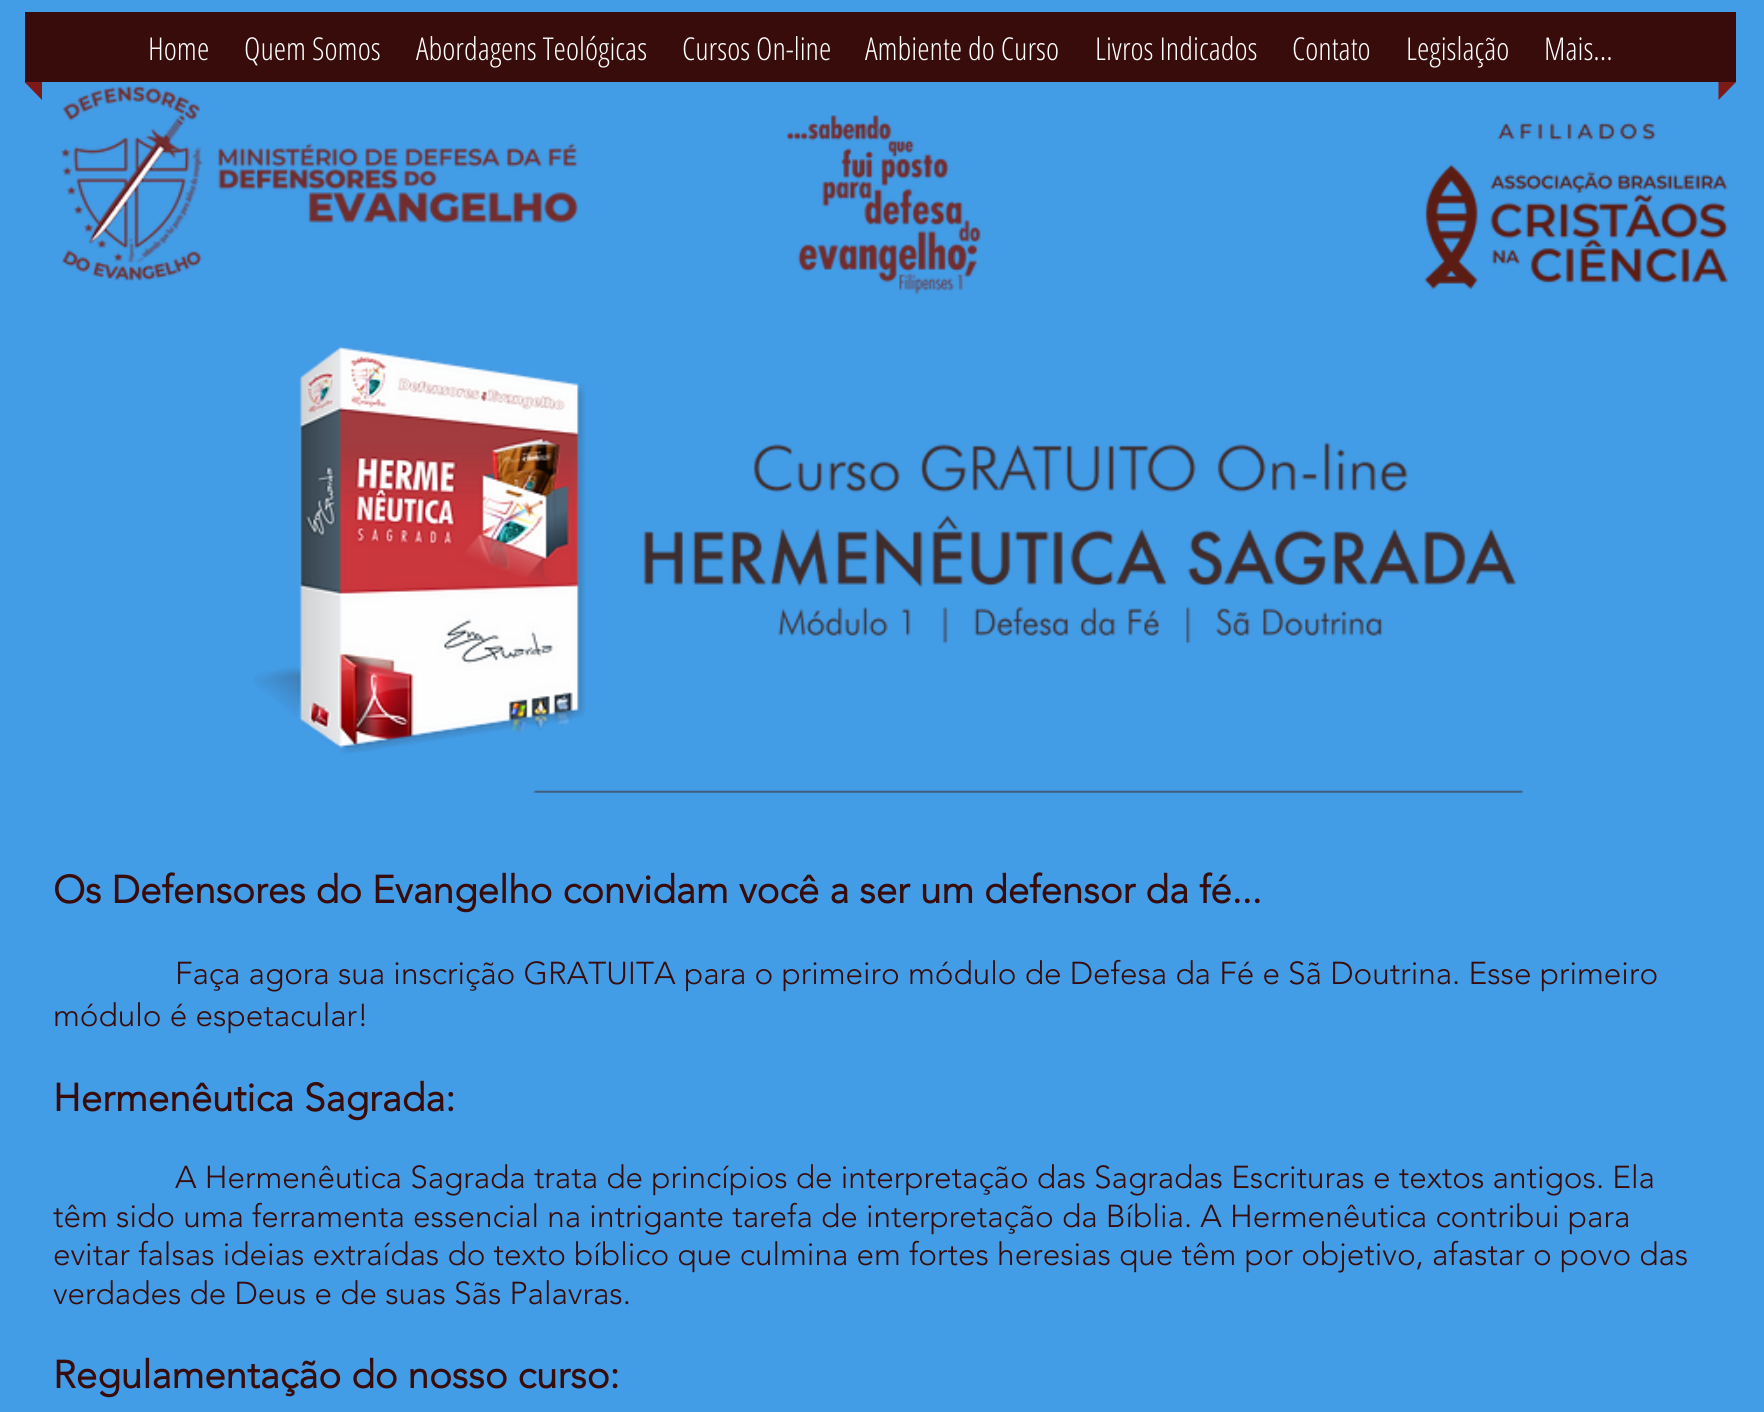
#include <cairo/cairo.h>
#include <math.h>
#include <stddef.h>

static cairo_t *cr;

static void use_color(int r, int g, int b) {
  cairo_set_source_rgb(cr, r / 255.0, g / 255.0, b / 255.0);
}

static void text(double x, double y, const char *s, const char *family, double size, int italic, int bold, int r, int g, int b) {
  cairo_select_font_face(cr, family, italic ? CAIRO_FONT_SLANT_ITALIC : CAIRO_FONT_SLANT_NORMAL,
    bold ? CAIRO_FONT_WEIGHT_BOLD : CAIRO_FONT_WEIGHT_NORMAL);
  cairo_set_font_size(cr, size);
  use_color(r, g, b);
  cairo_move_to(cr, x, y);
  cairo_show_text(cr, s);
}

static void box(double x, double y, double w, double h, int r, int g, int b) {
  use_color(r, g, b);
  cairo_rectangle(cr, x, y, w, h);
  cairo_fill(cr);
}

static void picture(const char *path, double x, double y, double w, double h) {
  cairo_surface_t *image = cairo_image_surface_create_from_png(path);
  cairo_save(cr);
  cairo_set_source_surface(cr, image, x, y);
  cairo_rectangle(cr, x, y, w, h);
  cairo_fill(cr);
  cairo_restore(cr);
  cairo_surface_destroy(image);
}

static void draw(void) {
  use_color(67, 156, 230);
  cairo_paint(cr);
  box(25, 12, 1711, 70, 55, 12, 11);
  use_color(125, 25, 23);
  cairo_new_path(cr);
  cairo_move_to(cr, 24.5, 82);
  cairo_line_to(cr, 42, 82);
  cairo_line_to(cr, 42, 100);
  cairo_close_path(cr);
  cairo_fill(cr);
  cairo_new_path(cr);
  cairo_move_to(cr, 1718.5, 82);
  cairo_line_to(cr, 1736, 82);
  cairo_line_to(cr, 1718.5, 100);
  cairo_close_path(cr);
  cairo_fill(cr);
  picture("img_01.png", 61, 85, 517, 196);
  picture("img_02.png", 787, 115, 194, 180);
  picture("img_03.png", 1424, 122, 304, 168);
  picture("img_04.png", 254, 346, 1270, 447);
  text(148, 60, "Home", "Open Sans Condensed Light", 31.5, 0, 0, 255, 255, 255);
  text(244, 60, "Quem Somos", "Open Sans Condensed Light", 31.5, 0, 0, 255, 255, 255);
  text(416, 60, "Abordagens Teológicas", "Open Sans Condensed Light", 31.5, 0, 0, 255, 255, 255);
  text(682, 60, "Cursos On-line", "Open Sans Condensed Light", 31.5, 0, 0, 255, 255, 255);
  text(865, 60, "Ambiente do Curso", "Open Sans Condensed Light", 31.5, 0, 0, 255, 255, 255);
  text(1095, 60, "Livros Indicados", "Open Sans Condensed Light", 31.5, 0, 0, 255, 255, 255);
  text(1292, 60, "Contato", "Open Sans Condensed Light", 31.5, 0, 0, 255, 255, 255);
  text(1406, 60, "Legislação", "Open Sans Condensed Light", 31.5, 0, 0, 255, 255, 255);
  text(1544, 60, "Mais...", "Open Sans Condensed Light", 31.5, 0, 0, 255, 255, 255);
  text(53, 903, "Os Defensores do Evangelho convidam você a ser um defensor da fé...", "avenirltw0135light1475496", 38.5, 0, 1, 55, 12, 11);
  text(175, 984, "Faça agora sua inscrição GRATUITA para o primeiro módulo de Defesa da Fé e Sã Doutrina. Esse primeiro", "avenirltw0135light1475496 Light", 31.5, 0, 0, 55, 12, 11);
  text(53, 1026, "módulo é espetacular!", "avenirltw0135light1475496 Light", 31.5, 0, 0, 55, 12, 11);
  text(53, 1111, "Hermenêutica Sagrada:", "avenirltw0135light1475496", 38.5, 0, 1, 55, 12, 11);
  text(175, 1188, "A Hermenêutica Sagrada trata de princípios de interpretação das Sagradas Escrituras e textos antigos. Ela", "avenirltw0135light1475496 Light", 31.5, 0, 0, 55, 12, 11);
  text(53, 1227, "têm sido uma ferramenta essencial na intrigante tarefa de interpretação da Bíblia. A Hermenêutica contribui para", "avenirltw0135light1475496 Light", 31.5, 0, 0, 55, 12, 11);
  text(53, 1265, "evitar falsas ideias extraídas do texto bíblico que culmina em fortes heresias que têm por objetivo, afastar o povo das", "avenirltw0135light1475496 Light", 31.5, 0, 0, 55, 12, 11);
  text(53, 1304, "verdades de Deus e de suas Sãs Palavras.", "avenirltw0135light1475496 Light", 31.5, 0, 0, 55, 12, 11);
  text(53, 1388, "Regulamentação do nosso curso:", "avenirltw0135light1475496", 38.5, 0, 1, 55, 12, 11);
}

int main(void) {
  cairo_surface_t *surface = cairo_image_surface_create(CAIRO_FORMAT_RGB24, 1764, 1412);
  cr = cairo_create(surface);
  cairo_font_options_t *options = cairo_font_options_create();
  cairo_font_options_set_hint_metrics(options, CAIRO_HINT_METRICS_OFF);
  cairo_font_options_set_hint_style(options, CAIRO_HINT_STYLE_NONE);
  cairo_set_font_options(cr, options);
  cairo_set_miter_limit(cr, 4);
  draw();
  cairo_surface_write_to_png(surface, "out.png");
  cairo_font_options_destroy(options);
  cairo_destroy(cr);
  cairo_surface_destroy(surface);
  return 0;
}
